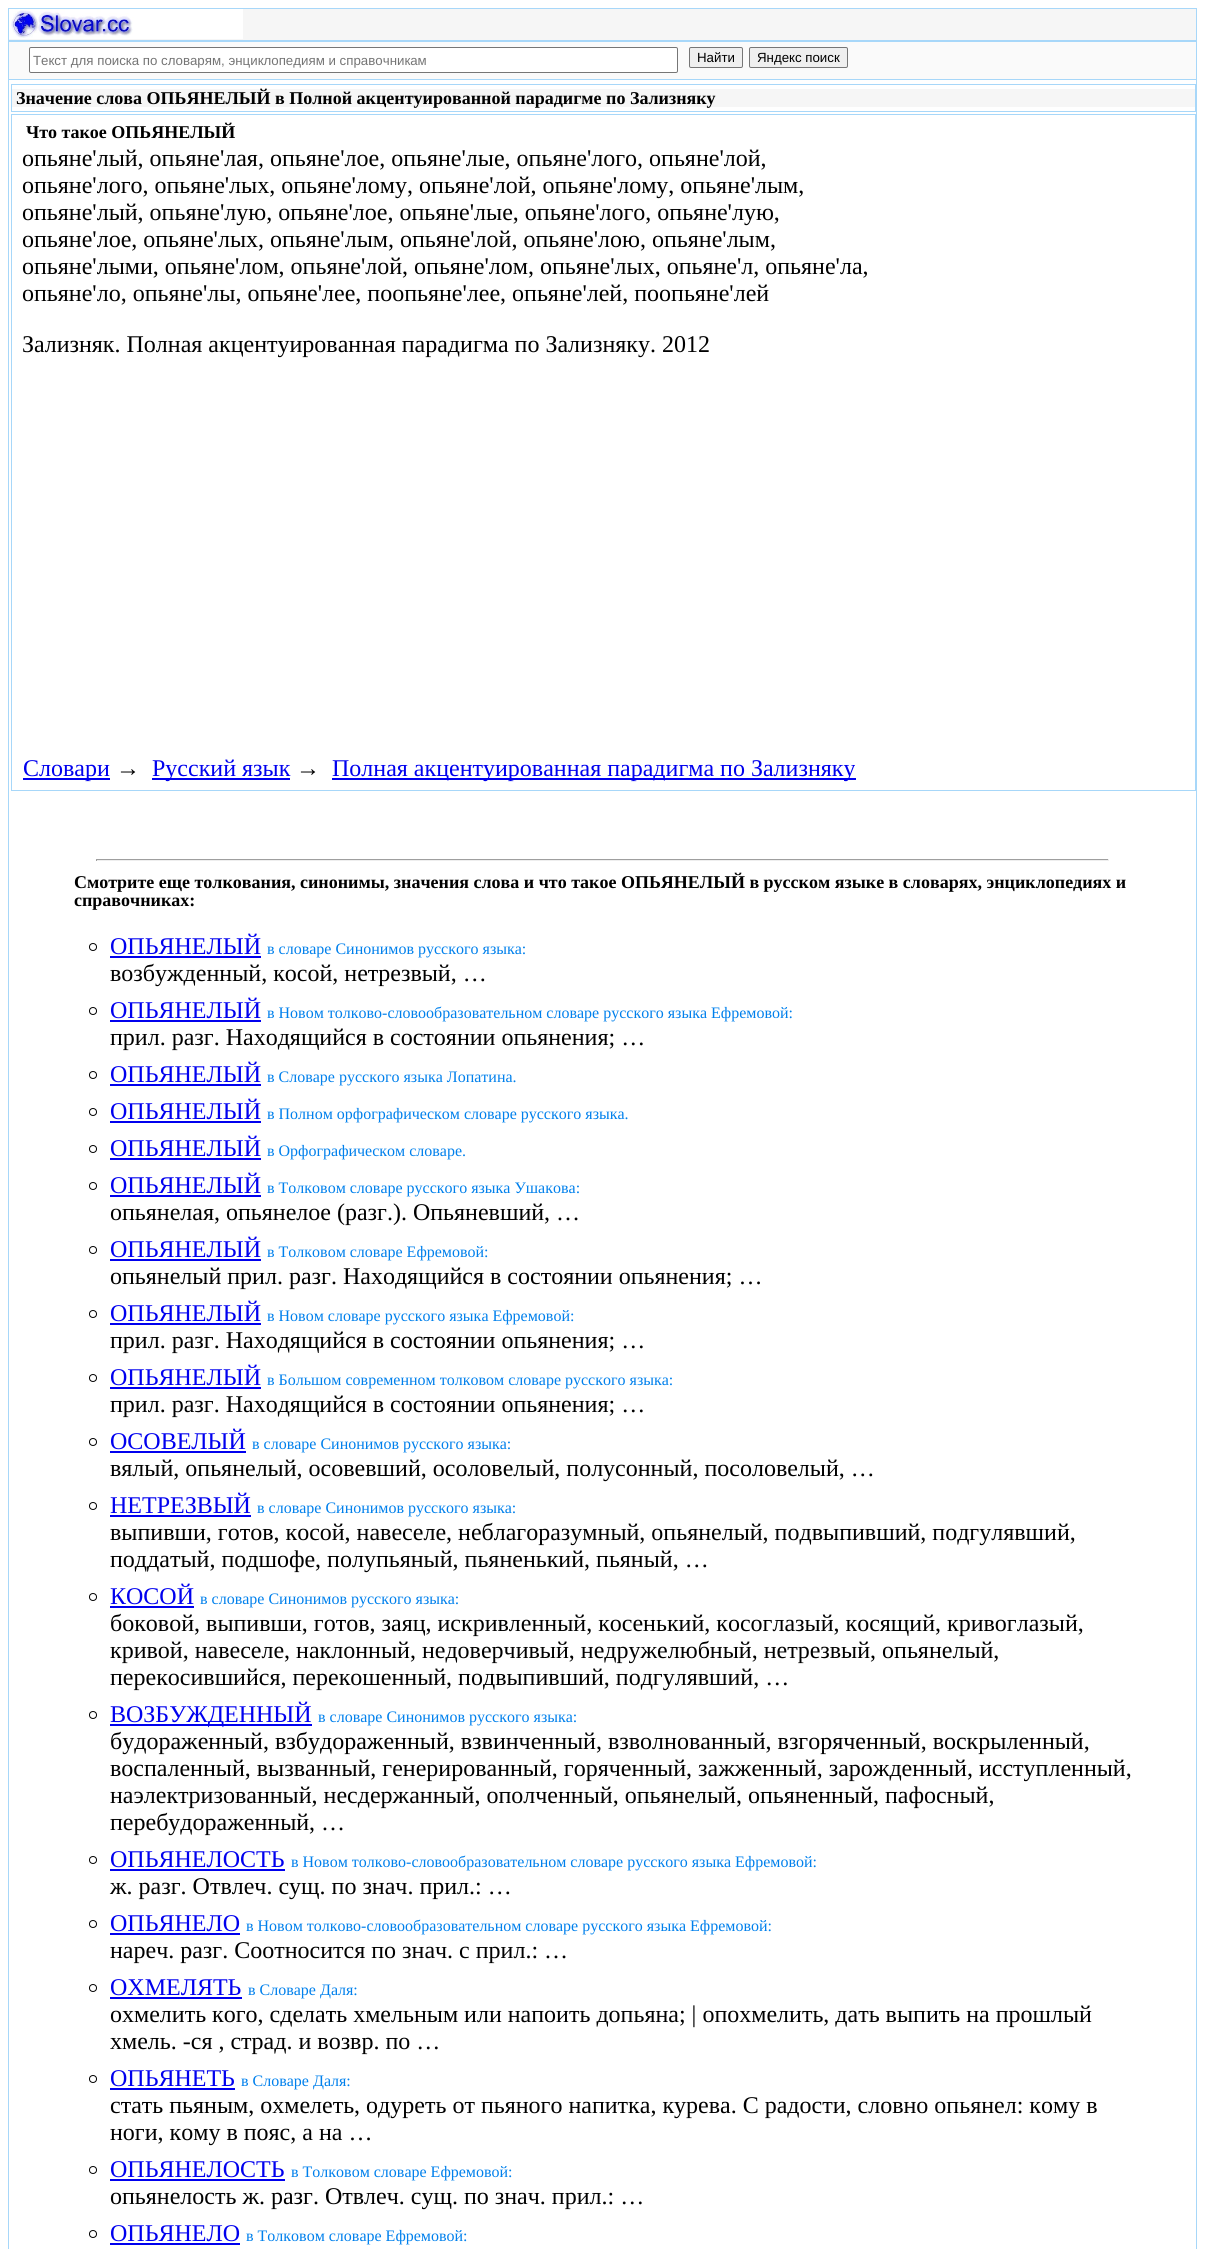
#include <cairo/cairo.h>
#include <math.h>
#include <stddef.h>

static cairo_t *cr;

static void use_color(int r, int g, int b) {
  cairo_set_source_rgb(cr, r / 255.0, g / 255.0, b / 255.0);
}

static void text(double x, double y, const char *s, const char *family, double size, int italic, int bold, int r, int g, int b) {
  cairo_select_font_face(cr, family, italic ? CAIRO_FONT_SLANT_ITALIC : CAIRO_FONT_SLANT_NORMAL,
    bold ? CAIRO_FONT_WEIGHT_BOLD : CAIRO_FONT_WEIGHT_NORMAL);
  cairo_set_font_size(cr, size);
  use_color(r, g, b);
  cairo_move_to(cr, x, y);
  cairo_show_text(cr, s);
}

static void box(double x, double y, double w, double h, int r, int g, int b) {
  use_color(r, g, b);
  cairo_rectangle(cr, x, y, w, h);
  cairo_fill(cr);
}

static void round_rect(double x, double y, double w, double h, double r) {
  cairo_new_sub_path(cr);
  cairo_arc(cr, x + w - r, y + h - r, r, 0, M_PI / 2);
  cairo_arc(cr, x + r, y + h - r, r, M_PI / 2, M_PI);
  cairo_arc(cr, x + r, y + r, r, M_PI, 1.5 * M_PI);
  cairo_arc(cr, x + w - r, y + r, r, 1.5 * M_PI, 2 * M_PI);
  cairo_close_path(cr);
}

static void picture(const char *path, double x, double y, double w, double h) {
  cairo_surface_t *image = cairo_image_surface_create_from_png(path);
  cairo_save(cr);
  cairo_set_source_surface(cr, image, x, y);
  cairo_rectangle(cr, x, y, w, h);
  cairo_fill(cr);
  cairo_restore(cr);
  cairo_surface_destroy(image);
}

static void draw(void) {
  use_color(255, 255, 255);
  cairo_paint(cr);
  box(1196, 8, 1, 2241, 167, 215, 249);
  box(8, 8, 1, 2241, 167, 215, 249);
  box(9, 9, 1187, 31, 246, 246, 246);
  box(9, 8, 1187, 1, 167, 215, 249);
  box(9, 40, 1187, 2, 167, 215, 249);
  picture("img_01.png", 9, 9, 234, 30);
  box(9, 42, 1187, 37, 250, 250, 250);
  box(9, 79, 1187, 1, 167, 215, 249);
  use_color(255, 255, 255);
  round_rect(29.5, 47.5, 648, 25, 1.5);
  cairo_fill_preserve(cr);
  use_color(118, 118, 118);
  cairo_set_line_width(cr, 1);
  cairo_stroke(cr);
  use_color(239, 239, 239);
  round_rect(689.5, 47.5, 53, 20, 1.5);
  cairo_fill_preserve(cr);
  use_color(118, 118, 118);
  cairo_stroke(cr);
  use_color(239, 239, 239);
  round_rect(749.5, 47.5, 98, 20, 1.5);
  cairo_fill_preserve(cr);
  use_color(118, 118, 118);
  cairo_stroke(cr);
  cairo_rectangle(cr, 11.5, 84.5, 1184, 27);
  use_color(167, 215, 249);
  cairo_stroke(cr);
  box(12, 89, 1183, 18, 246, 246, 246);
  cairo_rectangle(cr, 11.5, 114.5, 1184, 676);
  use_color(167, 215, 249);
  cairo_stroke(cr);
  box(23, 778, 87, 2, 0, 0, 238);
  box(152, 778, 138, 2, 0, 0, 238);
  box(332, 778, 524, 2, 0, 0, 238);
  box(96, 859, 1013, 1, 159, 159, 159);
  box(1108, 859, 1, 2, 238, 238, 238);
  box(96, 860, 1013, 1, 238, 238, 238);
  box(96, 859, 1, 2, 159, 159, 159);
  cairo_arc(cr, 93, 947, 3.5, 0, 2 * M_PI);
  use_color(0, 0, 0);
  cairo_stroke(cr);
  box(110, 956, 151, 2, 0, 0, 238);
  cairo_arc(cr, 93, 1011, 3.5, 0, 2 * M_PI);
  use_color(0, 0, 0);
  cairo_stroke(cr);
  box(110, 1020, 151, 2, 0, 0, 238);
  cairo_arc(cr, 93, 1075, 3.5, 0, 2 * M_PI);
  use_color(0, 0, 0);
  cairo_stroke(cr);
  box(110, 1084, 151, 2, 0, 0, 238);
  cairo_arc(cr, 93, 1112, 3.5, 0, 2 * M_PI);
  use_color(0, 0, 0);
  cairo_stroke(cr);
  box(110, 1121, 151, 2, 0, 0, 238);
  cairo_arc(cr, 93, 1149, 3.5, 0, 2 * M_PI);
  use_color(0, 0, 0);
  cairo_stroke(cr);
  box(110, 1158, 151, 2, 0, 0, 238);
  cairo_arc(cr, 93, 1186, 3.5, 0, 2 * M_PI);
  use_color(0, 0, 0);
  cairo_stroke(cr);
  box(110, 1195, 151, 2, 0, 0, 238);
  cairo_arc(cr, 93, 1250, 3.5, 0, 2 * M_PI);
  use_color(0, 0, 0);
  cairo_stroke(cr);
  box(110, 1259, 151, 2, 0, 0, 238);
  cairo_arc(cr, 93, 1314, 3.5, 0, 2 * M_PI);
  use_color(0, 0, 0);
  cairo_stroke(cr);
  box(110, 1323, 151, 2, 0, 0, 238);
  cairo_arc(cr, 93, 1378, 3.5, 0, 2 * M_PI);
  use_color(0, 0, 0);
  cairo_stroke(cr);
  box(110, 1387, 151, 2, 0, 0, 238);
  cairo_arc(cr, 93, 1442, 3.5, 0, 2 * M_PI);
  use_color(0, 0, 0);
  cairo_stroke(cr);
  box(110, 1451, 136, 2, 0, 0, 238);
  cairo_arc(cr, 93, 1506, 3.5, 0, 2 * M_PI);
  use_color(0, 0, 0);
  cairo_stroke(cr);
  box(110, 1515, 141, 2, 0, 0, 238);
  cairo_arc(cr, 93, 1597, 3.5, 0, 2 * M_PI);
  use_color(0, 0, 0);
  cairo_stroke(cr);
  box(110, 1606, 84, 2, 0, 0, 238);
  cairo_arc(cr, 93, 1715, 3.5, 0, 2 * M_PI);
  use_color(0, 0, 0);
  cairo_stroke(cr);
  box(110, 1724, 202, 2, 0, 0, 238);
  cairo_arc(cr, 93, 1860, 3.5, 0, 2 * M_PI);
  use_color(0, 0, 0);
  cairo_stroke(cr);
  box(110, 1869, 175, 2, 0, 0, 238);
  cairo_arc(cr, 93, 1924, 3.5, 0, 2 * M_PI);
  use_color(0, 0, 0);
  cairo_stroke(cr);
  box(110, 1933, 130, 2, 0, 0, 238);
  cairo_arc(cr, 93, 1988, 3.5, 0, 2 * M_PI);
  use_color(0, 0, 0);
  cairo_stroke(cr);
  box(110, 1997, 132, 2, 0, 0, 238);
  cairo_arc(cr, 93, 2079, 3.5, 0, 2 * M_PI);
  use_color(0, 0, 0);
  cairo_stroke(cr);
  box(110, 2088, 125, 2, 0, 0, 238);
  cairo_arc(cr, 93, 2170, 3.5, 0, 2 * M_PI);
  use_color(0, 0, 0);
  cairo_stroke(cr);
  box(110, 2179, 175, 2, 0, 0, 238);
  cairo_arc(cr, 93, 2234, 3.5, 0, 2 * M_PI);
  use_color(0, 0, 0);
  cairo_stroke(cr);
  box(110, 2243, 130, 2, 0, 0, 238);
  text(33, 65, "Текст для поиска по словарям, энциклопедиям и справочникам", "Liberation Sans", 13.3, 0, 0, 117, 117, 117);
  text(697, 62, "Найти", "Liberation Sans", 13.3, 0, 0, 0, 0, 0);
  text(757, 62, "Яндекс поиск", "Liberation Sans", 13.3, 0, 0, 0, 0, 0);
  text(16, 104, "Значение слова ОПЬЯНЕЛЫЙ в Полной акцентуированной парадигме по Зализняку", "Liberation Serif", 18, 0, 1, 0, 0, 0);
  text(26, 138, "Что такое ОПЬЯНЕЛЫЙ", "Liberation Serif", 18, 0, 1, 0, 0, 0);
  text(22, 166, "опьяне'лый, опьяне'лая, опьяне'лое, опьяне'лые, опьяне'лого, опьяне'лой,", "Liberation Serif", 24, 0, 0, 0, 0, 0);
  text(22, 193, "опьяне'лого, опьяне'лых, опьяне'лому, опьяне'лой, опьяне'лому, опьяне'лым,", "Liberation Serif", 24, 0, 0, 0, 0, 0);
  text(22, 220, "опьяне'лый, опьяне'лую, опьяне'лое, опьяне'лые, опьяне'лого, опьяне'лую,", "Liberation Serif", 24, 0, 0, 0, 0, 0);
  text(22, 247, "опьяне'лое, опьяне'лых, опьяне'лым, опьяне'лой, опьяне'лою, опьяне'лым,", "Liberation Serif", 24, 0, 0, 0, 0, 0);
  text(22, 274, "опьяне'лыми, опьяне'лом, опьяне'лой, опьяне'лом, опьяне'лых, опьяне'л, опьяне'ла,", "Liberation Serif", 24, 0, 0, 0, 0, 0);
  text(22, 301, "опьяне'ло, опьяне'лы, опьяне'лее, поопьяне'лее, опьяне'лей, поопьяне'лей", "Liberation Serif", 24, 0, 0, 0, 0, 0);
  text(22, 352, "Зализняк. Полная акцентуированная парадигма по Зализняку. 2012", "Liberation Serif", 24, 0, 0, 0, 0, 0);
  text(23, 776, "Словари", "Liberation Serif", 24, 0, 0, 0, 0, 238);
  text(116, 776, "→", "Liberation Serif", 24, 0, 0, 0, 0, 0);
  text(152, 776, "Русский язык", "Liberation Serif", 24, 0, 0, 0, 0, 238);
  text(296, 776, "→", "Liberation Serif", 24, 0, 0, 0, 0, 0);
  text(332, 776, "Полная акцентуированная парадигма по Зализняку", "Liberation Serif", 24, 0, 0, 0, 0, 238);
  text(74, 888, "Смотрите еще толкования, синонимы, значения слова и что такое ОПЬЯНЕЛЫЙ в русском языке в словарях, энциклопедиях и", "Liberation Serif", 18, 0, 1, 0, 0, 0);
  text(74, 906, "справочниках:", "Liberation Serif", 18, 0, 1, 0, 0, 0);
  text(110, 954, "ОПЬЯНЕЛЫЙ", "Liberation Serif", 24, 0, 0, 0, 0, 238);
  text(267, 954, "в словаре Синонимов русского языка:", "Liberation Serif", 16, 0, 0, 0, 128, 236);
  text(110, 981, "возбужденный, косой, нетрезвый, …", "Liberation Serif", 24, 0, 0, 0, 0, 0);
  text(110, 1018, "ОПЬЯНЕЛЫЙ", "Liberation Serif", 24, 0, 0, 0, 0, 238);
  text(267, 1018, "в Новом толково-словообразовательном словаре русского языка Ефремовой:", "Liberation Serif", 16, 0, 0, 0, 128, 236);
  text(110, 1045, "прил. разг. Находящийся в состоянии опьянения; …", "Liberation Serif", 24, 0, 0, 0, 0, 0);
  text(110, 1082, "ОПЬЯНЕЛЫЙ", "Liberation Serif", 24, 0, 0, 0, 0, 238);
  text(267, 1082, "в Словаре русского языка Лопатина.", "Liberation Serif", 16, 0, 0, 0, 128, 236);
  text(110, 1119, "ОПЬЯНЕЛЫЙ", "Liberation Serif", 24, 0, 0, 0, 0, 238);
  text(267, 1119, "в Полном орфографическом словаре русского языка.", "Liberation Serif", 16, 0, 0, 0, 128, 236);
  text(110, 1156, "ОПЬЯНЕЛЫЙ", "Liberation Serif", 24, 0, 0, 0, 0, 238);
  text(267, 1156, "в Орфографическом словаре.", "Liberation Serif", 16, 0, 0, 0, 128, 236);
  text(110, 1193, "ОПЬЯНЕЛЫЙ", "Liberation Serif", 24, 0, 0, 0, 0, 238);
  text(267, 1193, "в Толковом словаре русского языка Ушакова:", "Liberation Serif", 16, 0, 0, 0, 128, 236);
  text(110, 1220, "опьянелая, опьянелое (разг.). Опьяневший, …", "Liberation Serif", 24, 0, 0, 0, 0, 0);
  text(110, 1257, "ОПЬЯНЕЛЫЙ", "Liberation Serif", 24, 0, 0, 0, 0, 238);
  text(267, 1257, "в Толковом словаре Ефремовой:", "Liberation Serif", 16, 0, 0, 0, 128, 236);
  text(110, 1284, "опьянелый прил. разг. Находящийся в состоянии опьянения; …", "Liberation Serif", 24, 0, 0, 0, 0, 0);
  text(110, 1321, "ОПЬЯНЕЛЫЙ", "Liberation Serif", 24, 0, 0, 0, 0, 238);
  text(267, 1321, "в Новом словаре русского языка Ефремовой:", "Liberation Serif", 16, 0, 0, 0, 128, 236);
  text(110, 1348, "прил. разг. Находящийся в состоянии опьянения; …", "Liberation Serif", 24, 0, 0, 0, 0, 0);
  text(110, 1385, "ОПЬЯНЕЛЫЙ", "Liberation Serif", 24, 0, 0, 0, 0, 238);
  text(267, 1385, "в Большом современном толковом словаре русского языка:", "Liberation Serif", 16, 0, 0, 0, 128, 236);
  text(110, 1412, "прил. разг. Находящийся в состоянии опьянения; …", "Liberation Serif", 24, 0, 0, 0, 0, 0);
  text(110, 1449, "ОСОВЕЛЫЙ", "Liberation Serif", 24, 0, 0, 0, 0, 238);
  text(252, 1449, "в словаре Синонимов русского языка:", "Liberation Serif", 16, 0, 0, 0, 128, 236);
  text(110, 1476, "вялый, опьянелый, осовевший, осоловелый, полусонный, посоловелый, …", "Liberation Serif", 24, 0, 0, 0, 0, 0);
  text(110, 1513, "НЕТРЕЗВЫЙ", "Liberation Serif", 24, 0, 0, 0, 0, 238);
  text(257, 1513, "в словаре Синонимов русского языка:", "Liberation Serif", 16, 0, 0, 0, 128, 236);
  text(110, 1540, "выпивши, готов, косой, навеселе, неблагоразумный, опьянелый, подвыпивший, подгулявший,", "Liberation Serif", 24, 0, 0, 0, 0, 0);
  text(110, 1567, "поддатый, подшофе, полупьяный, пьяненький, пьяный, …", "Liberation Serif", 24, 0, 0, 0, 0, 0);
  text(110, 1604, "КОСОЙ", "Liberation Serif", 24, 0, 0, 0, 0, 238);
  text(200, 1604, "в словаре Синонимов русского языка:", "Liberation Serif", 16, 0, 0, 0, 128, 236);
  text(110, 1631, "боковой, выпивши, готов, заяц, искривленный, косенький, косоглазый, косящий, кривоглазый,", "Liberation Serif", 24, 0, 0, 0, 0, 0);
  text(110, 1658, "кривой, навеселе, наклонный, недоверчивый, недружелюбный, нетрезвый, опьянелый,", "Liberation Serif", 24, 0, 0, 0, 0, 0);
  text(110, 1685, "перекосившийся, перекошенный, подвыпивший, подгулявший, …", "Liberation Serif", 24, 0, 0, 0, 0, 0);
  text(110, 1722, "ВОЗБУЖДЕННЫЙ", "Liberation Serif", 24, 0, 0, 0, 0, 238);
  text(318, 1722, "в словаре Синонимов русского языка:", "Liberation Serif", 16, 0, 0, 0, 128, 236);
  text(110, 1749, "будораженный, взбудораженный, взвинченный, взволнованный, взгоряченный, воскрыленный,", "Liberation Serif", 24, 0, 0, 0, 0, 0);
  text(110, 1776, "воспаленный, вызванный, генерированный, горяченный, зажженный, зарожденный, исступленный,", "Liberation Serif", 24, 0, 0, 0, 0, 0);
  text(110, 1803, "наэлектризованный, несдержанный, ополченный, опьянелый, опьяненный, пафосный,", "Liberation Serif", 24, 0, 0, 0, 0, 0);
  text(110, 1830, "перебудораженный, …", "Liberation Serif", 24, 0, 0, 0, 0, 0);
  text(110, 1867, "ОПЬЯНЕЛОСТЬ", "Liberation Serif", 24, 0, 0, 0, 0, 238);
  text(291, 1867, "в Новом толково-словообразовательном словаре русского языка Ефремовой:", "Liberation Serif", 16, 0, 0, 0, 128, 236);
  text(110, 1894, "ж. разг. Отвлеч. сущ. по знач. прил.: …", "Liberation Serif", 24, 0, 0, 0, 0, 0);
  text(110, 1931, "ОПЬЯНЕЛО", "Liberation Serif", 24, 0, 0, 0, 0, 238);
  text(246, 1931, "в Новом толково-словообразовательном словаре русского языка Ефремовой:", "Liberation Serif", 16, 0, 0, 0, 128, 236);
  text(110, 1958, "нареч. разг. Соотносится по знач. с прил.: …", "Liberation Serif", 24, 0, 0, 0, 0, 0);
  text(110, 1995, "ОХМЕЛЯТЬ", "Liberation Serif", 24, 0, 0, 0, 0, 238);
  text(248, 1995, "в Словаре Даля:", "Liberation Serif", 16, 0, 0, 0, 128, 236);
  text(110, 2022, "охмелить кого, сделать хмельным или напоить допьяна; | опохмелить, дать выпить на прошлый", "Liberation Serif", 24, 0, 0, 0, 0, 0);
  text(110, 2049, "хмель. -ся , страд. и возвр. по …", "Liberation Serif", 24, 0, 0, 0, 0, 0);
  text(110, 2086, "ОПЬЯНЕТЬ", "Liberation Serif", 24, 0, 0, 0, 0, 238);
  text(241, 2086, "в Словаре Даля:", "Liberation Serif", 16, 0, 0, 0, 128, 236);
  text(110, 2113, "стать пьяным, охмелеть, одуреть от пьяного напитка, курева. С радости, словно опьянел: кому в", "Liberation Serif", 24, 0, 0, 0, 0, 0);
  text(110, 2140, "ноги, кому в пояс, а на …", "Liberation Serif", 24, 0, 0, 0, 0, 0);
  text(110, 2177, "ОПЬЯНЕЛОСТЬ", "Liberation Serif", 24, 0, 0, 0, 0, 238);
  text(291, 2177, "в Толковом словаре Ефремовой:", "Liberation Serif", 16, 0, 0, 0, 128, 236);
  text(110, 2204, "опьянелость ж. разг. Отвлеч. сущ. по знач. прил.: …", "Liberation Serif", 24, 0, 0, 0, 0, 0);
  text(110, 2241, "ОПЬЯНЕЛО", "Liberation Serif", 24, 0, 0, 0, 0, 238);
  text(246, 2241, "в Толковом словаре Ефремовой:", "Liberation Serif", 16, 0, 0, 0, 128, 236);
}

int main(void) {
  cairo_surface_t *surface = cairo_image_surface_create(CAIRO_FORMAT_RGB24, 1205, 2249);
  cr = cairo_create(surface);
  cairo_font_options_t *options = cairo_font_options_create();
  cairo_font_options_set_hint_metrics(options, CAIRO_HINT_METRICS_OFF);
  cairo_font_options_set_hint_style(options, CAIRO_HINT_STYLE_NONE);
  cairo_set_font_options(cr, options);
  cairo_set_miter_limit(cr, 4);
  draw();
  cairo_surface_write_to_png(surface, "out.png");
  cairo_font_options_destroy(options);
  cairo_destroy(cr);
  cairo_surface_destroy(surface);
  return 0;
}
